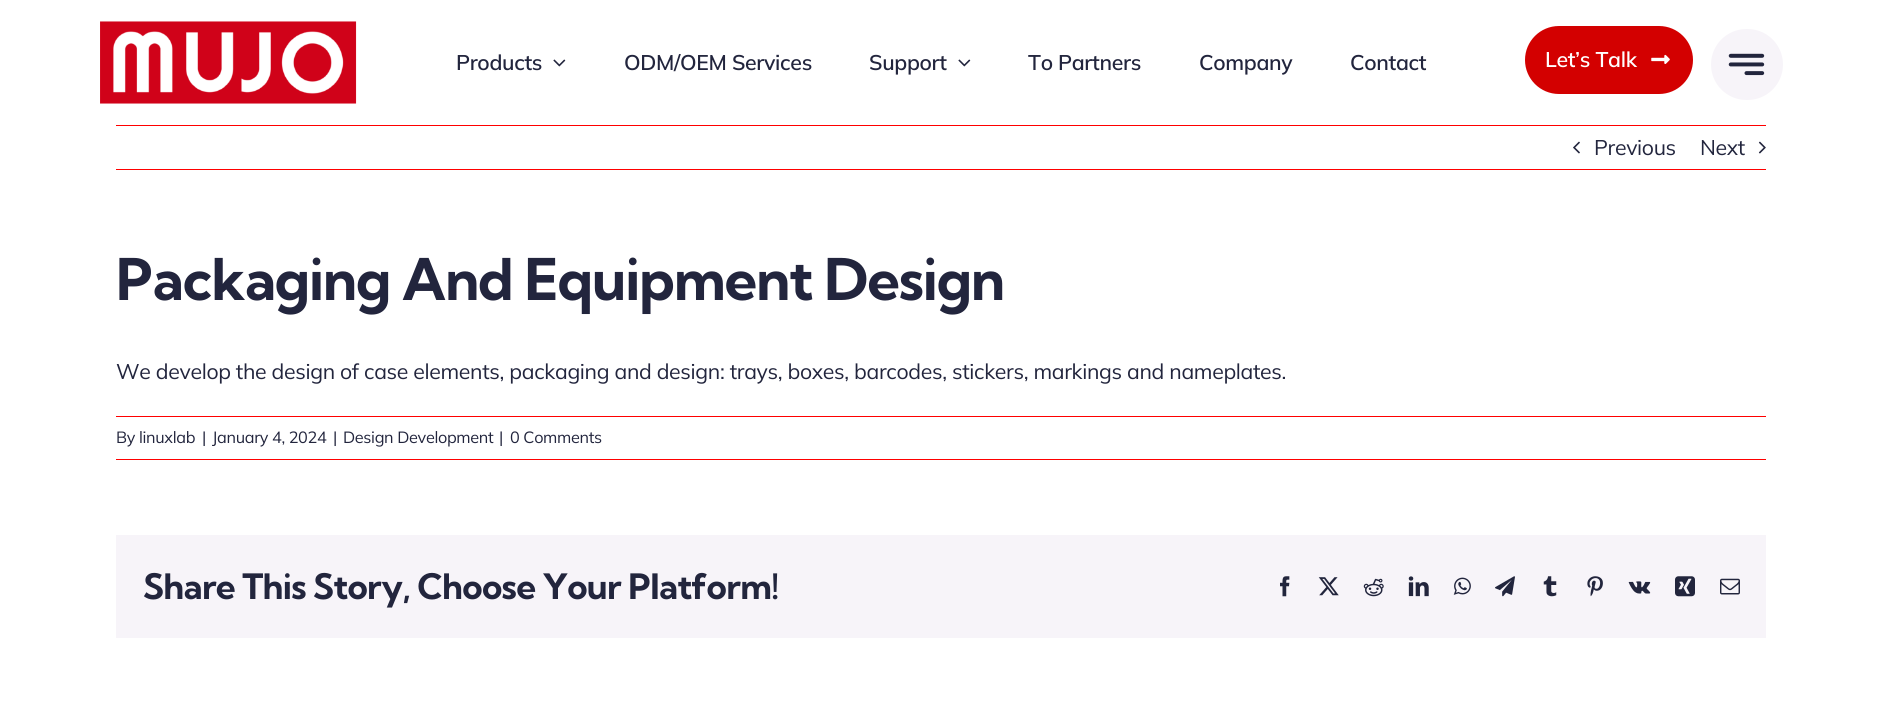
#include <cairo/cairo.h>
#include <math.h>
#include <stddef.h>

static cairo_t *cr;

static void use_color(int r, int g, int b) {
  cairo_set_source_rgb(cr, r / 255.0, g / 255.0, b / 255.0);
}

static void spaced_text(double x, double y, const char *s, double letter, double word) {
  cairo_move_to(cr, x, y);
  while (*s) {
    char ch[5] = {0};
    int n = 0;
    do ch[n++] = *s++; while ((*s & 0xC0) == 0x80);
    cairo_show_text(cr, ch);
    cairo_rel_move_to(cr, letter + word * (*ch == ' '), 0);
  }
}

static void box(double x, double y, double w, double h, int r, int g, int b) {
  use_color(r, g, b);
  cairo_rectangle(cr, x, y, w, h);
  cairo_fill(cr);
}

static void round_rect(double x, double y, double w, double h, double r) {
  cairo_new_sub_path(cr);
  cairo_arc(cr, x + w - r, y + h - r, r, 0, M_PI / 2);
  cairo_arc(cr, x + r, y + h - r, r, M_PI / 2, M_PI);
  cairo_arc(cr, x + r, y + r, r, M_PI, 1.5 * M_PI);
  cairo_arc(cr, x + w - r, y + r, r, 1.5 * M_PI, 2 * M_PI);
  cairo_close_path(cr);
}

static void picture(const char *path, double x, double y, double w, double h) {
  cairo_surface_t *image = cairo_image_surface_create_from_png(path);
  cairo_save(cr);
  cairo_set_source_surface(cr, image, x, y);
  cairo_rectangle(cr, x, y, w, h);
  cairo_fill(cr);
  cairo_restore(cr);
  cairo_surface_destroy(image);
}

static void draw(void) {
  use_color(255, 255, 255);
  cairo_paint(cr);
  picture("img_01.png", 100, 21, 257, 83);
  picture("img_02.png", 553, 59, 13, 8);
  picture("img_02.png", 958, 59, 13, 8);
  use_color(211, 0, 0);
  round_rect(1526.5, 27.5, 165, 65, 32.5);
  cairo_fill_preserve(cr);
  cairo_set_line_width(cr, 3);
  cairo_stroke(cr);
  picture("img_03.png", 1651, 54, 19, 10);
  use_color(247, 244, 249);
  round_rect(1711, 29, 72, 71, 35.5);
  cairo_fill(cr);
  picture("img_04.png", 1728, 53, 37, 23);
  box(116, 125, 1650, 1, 255, 0, 0);
  box(116, 169, 1650, 1, 255, 0, 0);
  picture("img_05.png", 1573, 141, 7, 13);
  picture("img_06.png", 1758, 141, 8, 13);
  box(116, 416, 1650, 1, 255, 0, 0);
  box(116, 459, 1650, 1, 255, 0, 0);
  box(116, 535, 1650, 103, 247, 244, 249);
  picture("img_07.png", 1280, 576, 10, 21);
  picture("img_08.png", 1318, 577, 21, 19);
  picture("img_09.png", 1363, 578, 21, 19);
  picture("img_10.png", 1408, 576, 21, 21);
  picture("img_11.png", 1453, 577, 18, 18);
  picture("img_12.png", 1495, 576, 20, 21);
  picture("img_13.png", 1543, 576, 14, 21);
  picture("img_14.png", 1587, 576, 16, 21);
  picture("img_15.png", 1628, 581, 23, 13);
  picture("img_16.png", 1675, 576, 20, 21);
  picture("img_17.png", 1720, 578, 20, 17);
  cairo_select_font_face(cr, "Mulish SemiBold", CAIRO_FONT_SLANT_NORMAL, CAIRO_FONT_WEIGHT_NORMAL);
  cairo_set_font_size(cr, 21.25);
  use_color(34, 37, 61);
  spaced_text(456, 70, "Products", -0.32, 0);
  spaced_text(624, 70, "ODM/OEM Services", -0.32, 0);
  spaced_text(869, 70, "Support", -0.32, 0);
  spaced_text(1028, 70, "To Partners", -0.32, 0);
  spaced_text(1199, 70, "Company", -0.32, 0);
  spaced_text(1350, 70, "Contact", -0.32, 0);
  use_color(255, 255, 255);
  spaced_text(1545, 67, "Let’s Talk", -0.32, 0);
  cairo_select_font_face(cr, "Mulish", CAIRO_FONT_SLANT_NORMAL, CAIRO_FONT_WEIGHT_NORMAL);
  use_color(34, 37, 61);
  spaced_text(1594, 155, "Previous", -0.32, 0);
  spaced_text(1700, 155, "Next", -0.32, 0);
  cairo_select_font_face(cr, "Kumbh Sans", CAIRO_FONT_SLANT_NORMAL, CAIRO_FONT_WEIGHT_BOLD);
  cairo_set_font_size(cr, 57.5);
  spaced_text(116, 300, "Packaging And Equipment Design", -1.15, 0);
  cairo_select_font_face(cr, "Mulish", CAIRO_FONT_SLANT_NORMAL, CAIRO_FONT_WEIGHT_NORMAL);
  cairo_set_font_size(cr, 21.25);
  spaced_text(116, 379, "We develop the design of case elements, packaging and design: trays, boxes, barcodes, stickers, markings and nameplates.", -0.32, 0);
  cairo_set_font_size(cr, 16.25);
  spaced_text(116, 443, "By linuxlab", -0.32, 0);
  spaced_text(202, 443, "|", -0.32, 0);
  spaced_text(212, 443, "January 4, 2024", -0.32, 0);
  spaced_text(333, 443, "|", -0.32, 0);
  spaced_text(343, 443, "Design Development", -0.32, 0);
  spaced_text(499, 443, "|", -0.32, 0);
  spaced_text(510, 443, "0 Comments", -0.32, 0);
  cairo_select_font_face(cr, "Kumbh Sans", CAIRO_FONT_SLANT_NORMAL, CAIRO_FONT_WEIGHT_BOLD);
  cairo_set_font_size(cr, 35);
  spaced_text(143, 599, "Share This Story, Choose Your Platform!", -0.7, 0);
}

int main(void) {
  cairo_surface_t *surface = cairo_image_surface_create(CAIRO_FORMAT_RGB24, 1882, 726);
  cr = cairo_create(surface);
  cairo_font_options_t *options = cairo_font_options_create();
  cairo_font_options_set_hint_metrics(options, CAIRO_HINT_METRICS_OFF);
  cairo_font_options_set_hint_style(options, CAIRO_HINT_STYLE_NONE);
  cairo_set_font_options(cr, options);
  cairo_set_miter_limit(cr, 4);
  draw();
  cairo_surface_write_to_png(surface, "out.png");
  cairo_font_options_destroy(options);
  cairo_destroy(cr);
  cairo_surface_destroy(surface);
  return 0;
}
